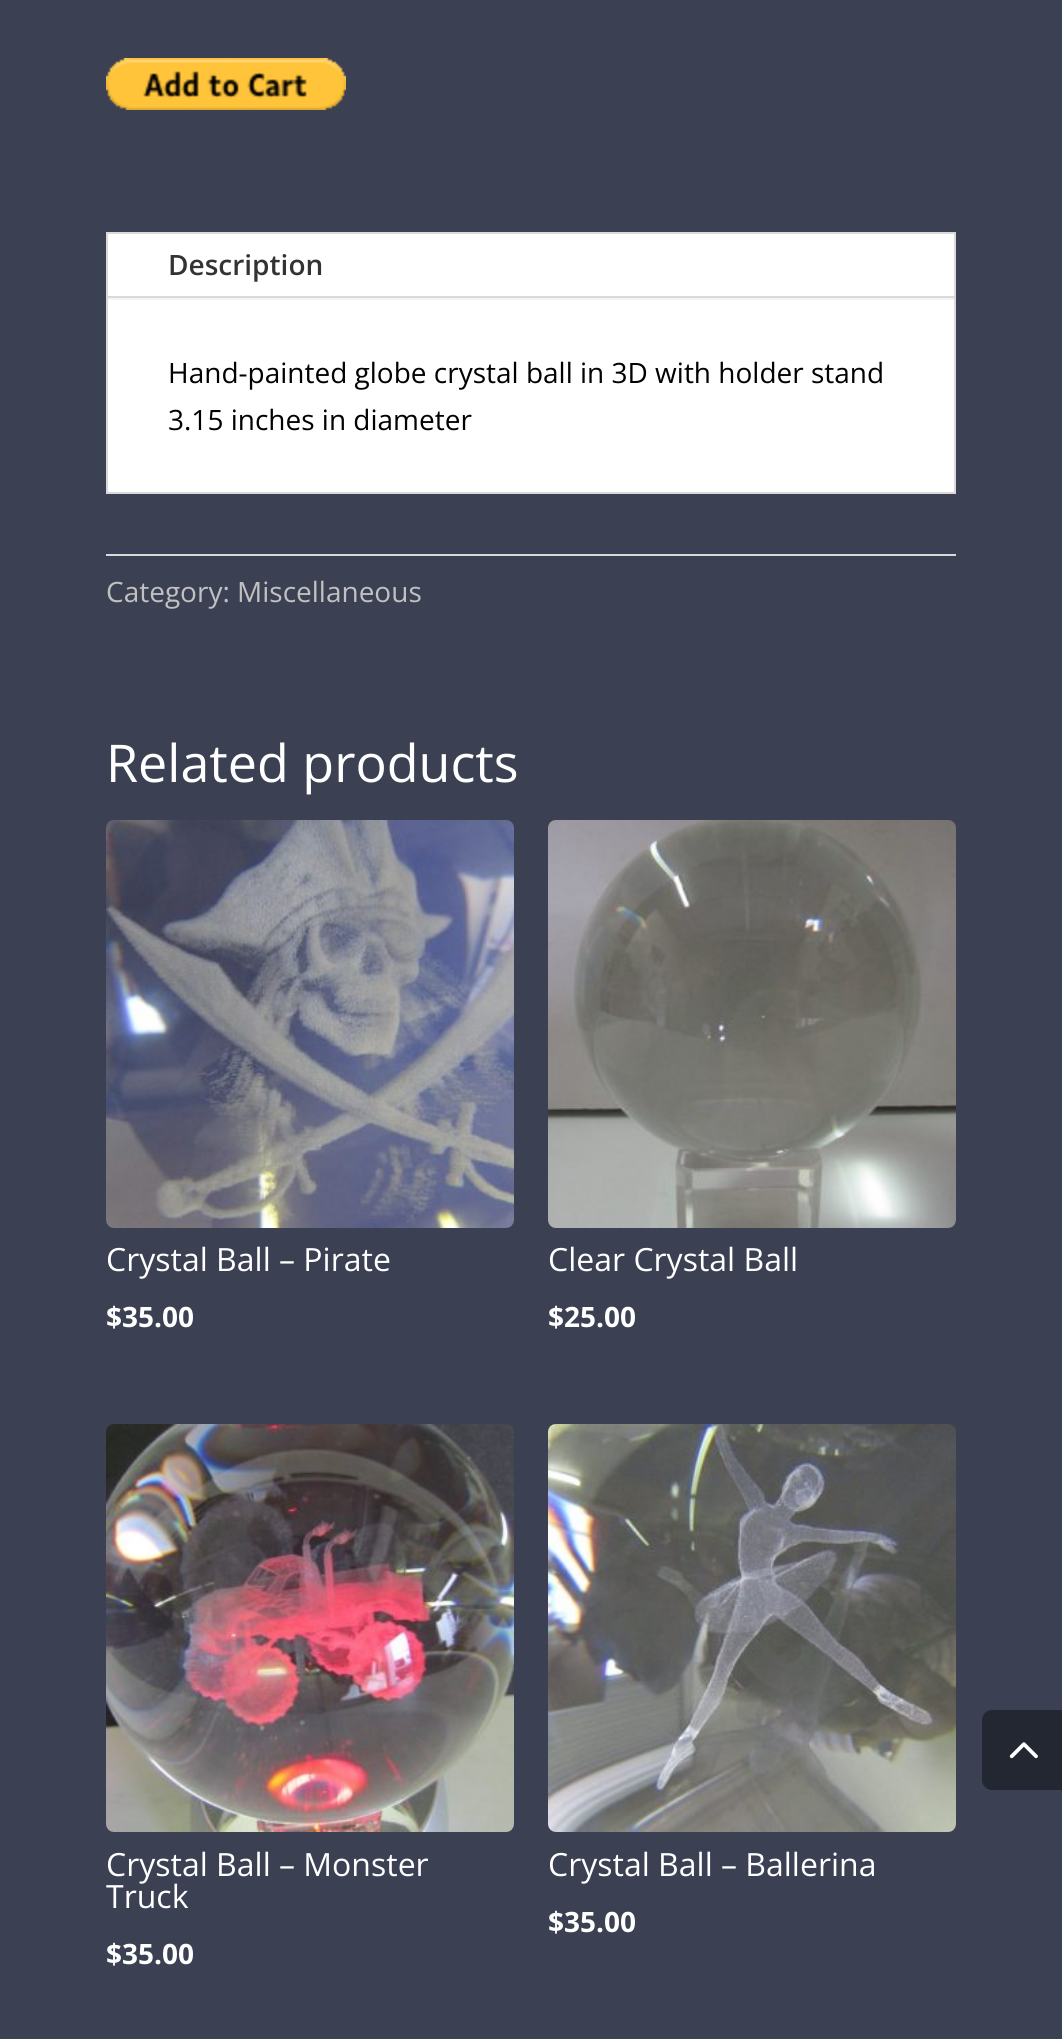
#include <cairo/cairo.h>
#include <math.h>
#include <stddef.h>

static cairo_t *cr;

static void use_color(int r, int g, int b) {
  cairo_set_source_rgb(cr, r / 255.0, g / 255.0, b / 255.0);
}

static void text(double x, double y, const char *s, const char *family, double size, int italic, int bold, int r, int g, int b) {
  cairo_select_font_face(cr, family, italic ? CAIRO_FONT_SLANT_ITALIC : CAIRO_FONT_SLANT_NORMAL,
    bold ? CAIRO_FONT_WEIGHT_BOLD : CAIRO_FONT_WEIGHT_NORMAL);
  cairo_set_font_size(cr, size);
  use_color(r, g, b);
  cairo_move_to(cr, x, y);
  cairo_show_text(cr, s);
}

static void box(double x, double y, double w, double h, int r, int g, int b) {
  use_color(r, g, b);
  cairo_rectangle(cr, x, y, w, h);
  cairo_fill(cr);
}

static void picture(const char *path, double x, double y, double w, double h) {
  cairo_surface_t *image = cairo_image_surface_create_from_png(path);
  cairo_save(cr);
  cairo_set_source_surface(cr, image, x, y);
  cairo_rectangle(cr, x, y, w, h);
  cairo_fill(cr);
  cairo_restore(cr);
  cairo_surface_destroy(image);
}

static void draw(void) {
  use_color(59, 65, 82);
  cairo_paint(cr);
  picture("img_01.png", 106, 58, 240, 52);
  cairo_rectangle(cr, 107, 233, 848, 260);
  use_color(217, 217, 217);
  cairo_stroke(cr);
  box(108, 298, 846, 2, 244, 244, 244);
  box(108, 234, 846, 62, 255, 255, 255);
  box(108, 296, 846, 2, 217, 217, 217);
  box(108, 300, 846, 192, 255, 255, 255);
  box(106, 554, 850, 2, 218, 218, 218);
  picture("img_02.png", 106, 820, 408, 408);
  picture("img_03.png", 548, 820, 408, 408);
  picture("img_04.png", 106, 1424, 408, 408);
  picture("img_05.png", 548, 1424, 408, 408);
  use_color(35, 39, 49);
  cairo_new_path(cr);
  cairo_move_to(cr, 992, 1710);
  cairo_line_to(cr, 1062, 1710);
  cairo_line_to(cr, 1062, 1790);
  cairo_line_to(cr, 992, 1790);
  cairo_curve_to(cr, 986.5, 1790, 982, 1785.5, 982, 1780);
  cairo_line_to(cr, 982, 1720);
  cairo_curve_to(cr, 982, 1714.5, 986.5, 1710, 992, 1710);
  cairo_close_path(cr);
  cairo_fill(cr);
  picture("img_06.png", 1009, 1742, 29, 17);
  text(168, 275, "Description", "Open Sans SemiBold", 28, 0, 0, 51, 51, 51);
  text(168, 383, "Hand-painted globe crystal ball in 3D with holder stand", "Open Sans", 28, 0, 0, 0, 0, 0);
  text(168, 430, "3.15 inches in diameter", "Open Sans", 28, 0, 0, 0, 0, 0);
  text(106, 602, "Category: Miscellaneous", "Open Sans", 28, 0, 0, 193, 193, 193);
  text(106, 782, "Related products", "Open Sans", 52, 0, 0, 255, 255, 255);
  text(106, 1271, "Crystal Ball – Pirate", "Open Sans", 32, 0, 0, 255, 255, 255);
  text(106, 1327, "$35.00", "Open Sans", 28, 0, 1, 255, 255, 255);
  text(548, 1271, "Clear Crystal Ball", "Open Sans", 32, 0, 0, 255, 255, 255);
  text(548, 1327, "$25.00", "Open Sans", 28, 0, 1, 255, 255, 255);
  text(106, 1876, "Crystal Ball – Monster", "Open Sans", 32, 0, 0, 255, 255, 255);
  text(106, 1908, "Truck", "Open Sans", 32, 0, 0, 255, 255, 255);
  text(106, 1964, "$35.00", "Open Sans", 28, 0, 1, 255, 255, 255);
  text(548, 1876, "Crystal Ball – Ballerina", "Open Sans", 32, 0, 0, 255, 255, 255);
  text(548, 1932, "$35.00", "Open Sans", 28, 0, 1, 255, 255, 255);
}

int main(void) {
  cairo_surface_t *surface = cairo_image_surface_create(CAIRO_FORMAT_RGB24, 1062, 2039);
  cr = cairo_create(surface);
  cairo_font_options_t *options = cairo_font_options_create();
  cairo_font_options_set_hint_metrics(options, CAIRO_HINT_METRICS_OFF);
  cairo_font_options_set_hint_style(options, CAIRO_HINT_STYLE_NONE);
  cairo_set_font_options(cr, options);
  cairo_set_miter_limit(cr, 4);
  draw();
  cairo_surface_write_to_png(surface, "out.png");
  cairo_font_options_destroy(options);
  cairo_destroy(cr);
  cairo_surface_destroy(surface);
  return 0;
}
